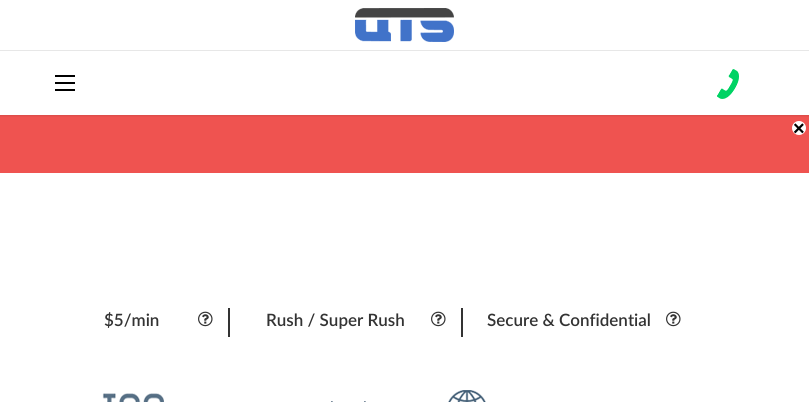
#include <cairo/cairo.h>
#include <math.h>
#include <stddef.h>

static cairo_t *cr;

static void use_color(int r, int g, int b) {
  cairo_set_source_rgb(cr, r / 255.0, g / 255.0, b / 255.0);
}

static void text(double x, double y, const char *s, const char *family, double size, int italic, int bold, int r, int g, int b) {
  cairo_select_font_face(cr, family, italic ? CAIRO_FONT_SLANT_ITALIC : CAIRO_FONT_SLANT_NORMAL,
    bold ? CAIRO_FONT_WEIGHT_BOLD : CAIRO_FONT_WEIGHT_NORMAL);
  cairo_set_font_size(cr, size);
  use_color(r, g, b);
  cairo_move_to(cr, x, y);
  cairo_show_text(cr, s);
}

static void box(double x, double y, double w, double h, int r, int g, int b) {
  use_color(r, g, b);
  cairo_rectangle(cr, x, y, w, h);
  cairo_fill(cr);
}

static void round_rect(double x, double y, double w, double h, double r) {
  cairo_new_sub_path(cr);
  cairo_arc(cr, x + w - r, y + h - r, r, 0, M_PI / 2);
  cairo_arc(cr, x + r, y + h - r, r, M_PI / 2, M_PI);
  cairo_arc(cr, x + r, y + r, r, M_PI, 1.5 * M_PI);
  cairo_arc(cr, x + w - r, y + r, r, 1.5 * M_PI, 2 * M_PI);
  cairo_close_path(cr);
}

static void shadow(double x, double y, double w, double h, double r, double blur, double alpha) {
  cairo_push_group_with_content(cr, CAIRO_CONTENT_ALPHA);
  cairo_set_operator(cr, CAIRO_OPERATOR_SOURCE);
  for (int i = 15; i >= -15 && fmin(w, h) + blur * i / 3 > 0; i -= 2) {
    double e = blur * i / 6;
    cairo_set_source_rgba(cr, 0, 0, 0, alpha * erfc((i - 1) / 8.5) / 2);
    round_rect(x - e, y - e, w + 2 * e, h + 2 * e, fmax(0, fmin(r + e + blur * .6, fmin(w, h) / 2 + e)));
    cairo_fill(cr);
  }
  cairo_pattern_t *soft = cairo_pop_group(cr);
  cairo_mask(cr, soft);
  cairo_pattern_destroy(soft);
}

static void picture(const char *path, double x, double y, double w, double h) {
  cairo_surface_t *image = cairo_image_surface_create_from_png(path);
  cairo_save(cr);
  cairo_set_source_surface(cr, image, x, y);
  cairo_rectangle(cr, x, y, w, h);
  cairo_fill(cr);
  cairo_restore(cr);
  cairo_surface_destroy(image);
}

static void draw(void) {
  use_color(255, 255, 255);
  cairo_paint(cr);
  box(0, 115, 809, 58, 239, 83, 80);
  cairo_save(cr);
  cairo_rectangle(cr, 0, 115, 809, 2);
  cairo_clip(cr);
  use_color(0, 0, 0);
  shadow(-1, -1, 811, 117, 0, 1, 0.1);
  cairo_restore(cr);
  box(0, 50, 809, 1, 231, 231, 231);
  picture("img_01.png", 355, 8, 99, 34);
  box(55, 75, 20, 2, 0, 0, 0);
  box(55, 82, 20, 2, 0, 0, 0);
  box(55, 89, 20, 2, 0, 0, 0);
  picture("img_02.png", 717, 69, 22, 30);
  use_color(255, 255, 255);
  cairo_arc(cr, 799, 128, 7, 0, 2 * M_PI);
  cairo_fill(cr);
  box(228, 308, 2, 29, 51, 51, 51);
  picture("img_03.png", 198, 311, 15, 16);
  box(461, 308, 2, 29, 51, 51, 51);
  picture("img_03.png", 431, 311, 15, 16);
  picture("img_03.png", 666, 311, 15, 16);
  picture("img_04.png", 102, 393, 264, 9);
  picture("img_05.png", 448, 390, 38, 12);
  text(793, 135, "×", "Liberation Sans", 20, 0, 1, 0, 0, 0);
  text(104, 326, "$5/min", "Lato SemiBold", 17, 0, 0, 51, 51, 51);
  text(266, 326, "Rush / Super Rush", "Lato SemiBold", 17, 0, 0, 51, 51, 51);
  text(487, 326, "Secure & Confidential", "Lato SemiBold", 17, 0, 0, 51, 51, 51);
}

int main(void) {
  cairo_surface_t *surface = cairo_image_surface_create(CAIRO_FORMAT_RGB24, 809, 402);
  cr = cairo_create(surface);
  cairo_font_options_t *options = cairo_font_options_create();
  cairo_font_options_set_hint_metrics(options, CAIRO_HINT_METRICS_OFF);
  cairo_font_options_set_hint_style(options, CAIRO_HINT_STYLE_NONE);
  cairo_set_font_options(cr, options);
  cairo_set_miter_limit(cr, 4);
  draw();
  cairo_surface_write_to_png(surface, "out.png");
  cairo_font_options_destroy(options);
  cairo_destroy(cr);
  cairo_surface_destroy(surface);
  return 0;
}
